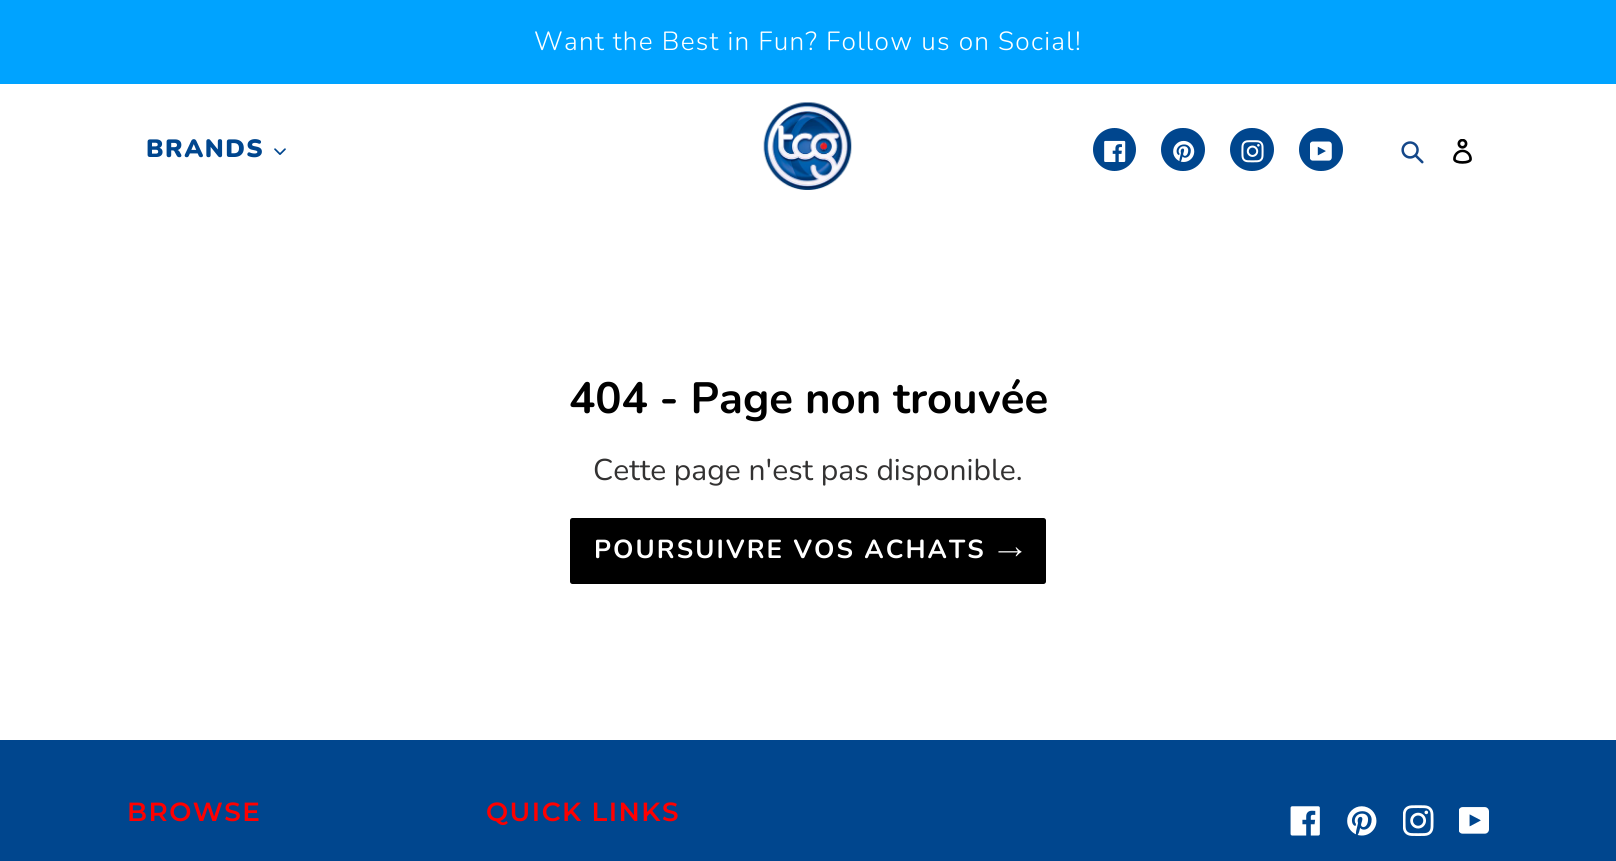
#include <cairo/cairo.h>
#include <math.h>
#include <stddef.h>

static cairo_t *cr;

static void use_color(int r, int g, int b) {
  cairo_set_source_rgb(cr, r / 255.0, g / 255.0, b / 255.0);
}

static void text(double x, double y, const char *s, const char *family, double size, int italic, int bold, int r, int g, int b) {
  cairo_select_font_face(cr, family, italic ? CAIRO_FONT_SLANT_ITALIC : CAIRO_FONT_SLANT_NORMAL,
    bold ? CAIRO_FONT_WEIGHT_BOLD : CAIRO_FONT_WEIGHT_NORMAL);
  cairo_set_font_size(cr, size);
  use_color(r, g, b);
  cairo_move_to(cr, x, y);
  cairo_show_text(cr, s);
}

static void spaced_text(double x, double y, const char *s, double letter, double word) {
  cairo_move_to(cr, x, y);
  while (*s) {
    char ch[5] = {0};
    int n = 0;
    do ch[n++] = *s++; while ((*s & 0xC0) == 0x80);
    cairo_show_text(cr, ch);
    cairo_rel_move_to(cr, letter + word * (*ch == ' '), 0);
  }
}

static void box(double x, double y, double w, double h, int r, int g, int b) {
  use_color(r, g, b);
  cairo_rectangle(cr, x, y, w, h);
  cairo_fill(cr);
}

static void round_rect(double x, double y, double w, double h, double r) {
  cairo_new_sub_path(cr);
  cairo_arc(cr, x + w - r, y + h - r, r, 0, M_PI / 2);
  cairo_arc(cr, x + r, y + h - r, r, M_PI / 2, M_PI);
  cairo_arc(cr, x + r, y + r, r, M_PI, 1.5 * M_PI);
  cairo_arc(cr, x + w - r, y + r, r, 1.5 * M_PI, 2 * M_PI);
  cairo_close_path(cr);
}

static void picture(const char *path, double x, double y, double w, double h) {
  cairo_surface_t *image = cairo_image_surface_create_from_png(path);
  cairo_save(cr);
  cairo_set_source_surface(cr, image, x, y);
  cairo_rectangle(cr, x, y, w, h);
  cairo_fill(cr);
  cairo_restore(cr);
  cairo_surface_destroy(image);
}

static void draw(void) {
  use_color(255, 255, 255);
  cairo_paint(cr);
  box(0, 0, 1616, 84, 0, 163, 255);
  picture("img_01.png", 274, 148, 12, 7);
  picture("img_02.png", 763, 102, 89, 88);
  use_color(0, 70, 142);
  cairo_arc(cr, 1114.5, 149.5, 21.5, 0, 2 * M_PI);
  cairo_fill(cr);
  picture("img_03.png", 1104, 140, 22, 22);
  round_rect(1161, 128, 44, 43, 21.5);
  cairo_fill(cr);
  picture("img_04.png", 1173, 140, 22, 22);
  round_rect(1230, 128, 44, 43, 21.5);
  cairo_fill(cr);
  picture("img_05.png", 1241, 140, 23, 23);
  round_rect(1299, 128, 44, 43, 21.5);
  cairo_fill(cr);
  picture("img_06.png", 1310, 141, 22, 20);
  picture("img_07.png", 1401, 141, 23, 23);
  picture("img_08.png", 1453, 139, 19, 25);
  use_color(0, 0, 0);
  round_rect(570, 518, 476, 66, 2.5);
  cairo_fill(cr);
  picture("img_09.png", 998, 547, 24, 10);
  box(0, 740, 1616, 121, 0, 70, 142);
  picture("img_10.png", 1290, 806, 30, 30);
  picture("img_11.png", 1347, 806, 30, 30);
  picture("img_12.png", 1403, 805, 31, 31);
  picture("img_13.png", 1459, 807, 30, 27);
  cairo_select_font_face(cr, "Nunito Light", CAIRO_FONT_SLANT_NORMAL, CAIRO_FONT_WEIGHT_NORMAL);
  cairo_set_font_size(cr, 26.25);
  use_color(255, 255, 255);
  spaced_text(534, 50, "Want the Best in Fun? Follow us on Social!", 1.25, 0);
  cairo_select_font_face(cr, "Nunito Black", CAIRO_FONT_SLANT_NORMAL, CAIRO_FONT_WEIGHT_NORMAL);
  cairo_set_font_size(cr, 25);
  use_color(0, 70, 142);
  spaced_text(146, 157, "BRANDS", 1.5, 0);
  text(569, 413, "404 - Page non trouvée", "Nunito", 43.75, 0, 1, 0, 0, 0);
  text(593, 480, "Cette page n'est pas disponible.", "Nunito", 30, 0, 0, 51, 50, 50);
  cairo_select_font_face(cr, "Nunito", CAIRO_FONT_SLANT_NORMAL, CAIRO_FONT_WEIGHT_BOLD);
  cairo_set_font_size(cr, 26);
  use_color(255, 255, 255);
  spaced_text(594, 558, "POURSUIVRE VOS ACHATS", 2.1, 0);
  cairo_select_font_face(cr, "Montserrat SemiBold", CAIRO_FONT_SLANT_NORMAL, CAIRO_FONT_WEIGHT_NORMAL);
  cairo_set_font_size(cr, 26.25);
  use_color(255, 0, 0);
  spaced_text(127, 821, "BROWSE", 1.5, 0);
  spaced_text(486, 821, "QUICK LINKS", 1.5, 0);
}

int main(void) {
  cairo_surface_t *surface = cairo_image_surface_create(CAIRO_FORMAT_RGB24, 1616, 861);
  cr = cairo_create(surface);
  cairo_font_options_t *options = cairo_font_options_create();
  cairo_font_options_set_hint_metrics(options, CAIRO_HINT_METRICS_OFF);
  cairo_font_options_set_hint_style(options, CAIRO_HINT_STYLE_NONE);
  cairo_set_font_options(cr, options);
  cairo_set_miter_limit(cr, 4);
  draw();
  cairo_surface_write_to_png(surface, "out.png");
  cairo_font_options_destroy(options);
  cairo_destroy(cr);
  cairo_surface_destroy(surface);
  return 0;
}
